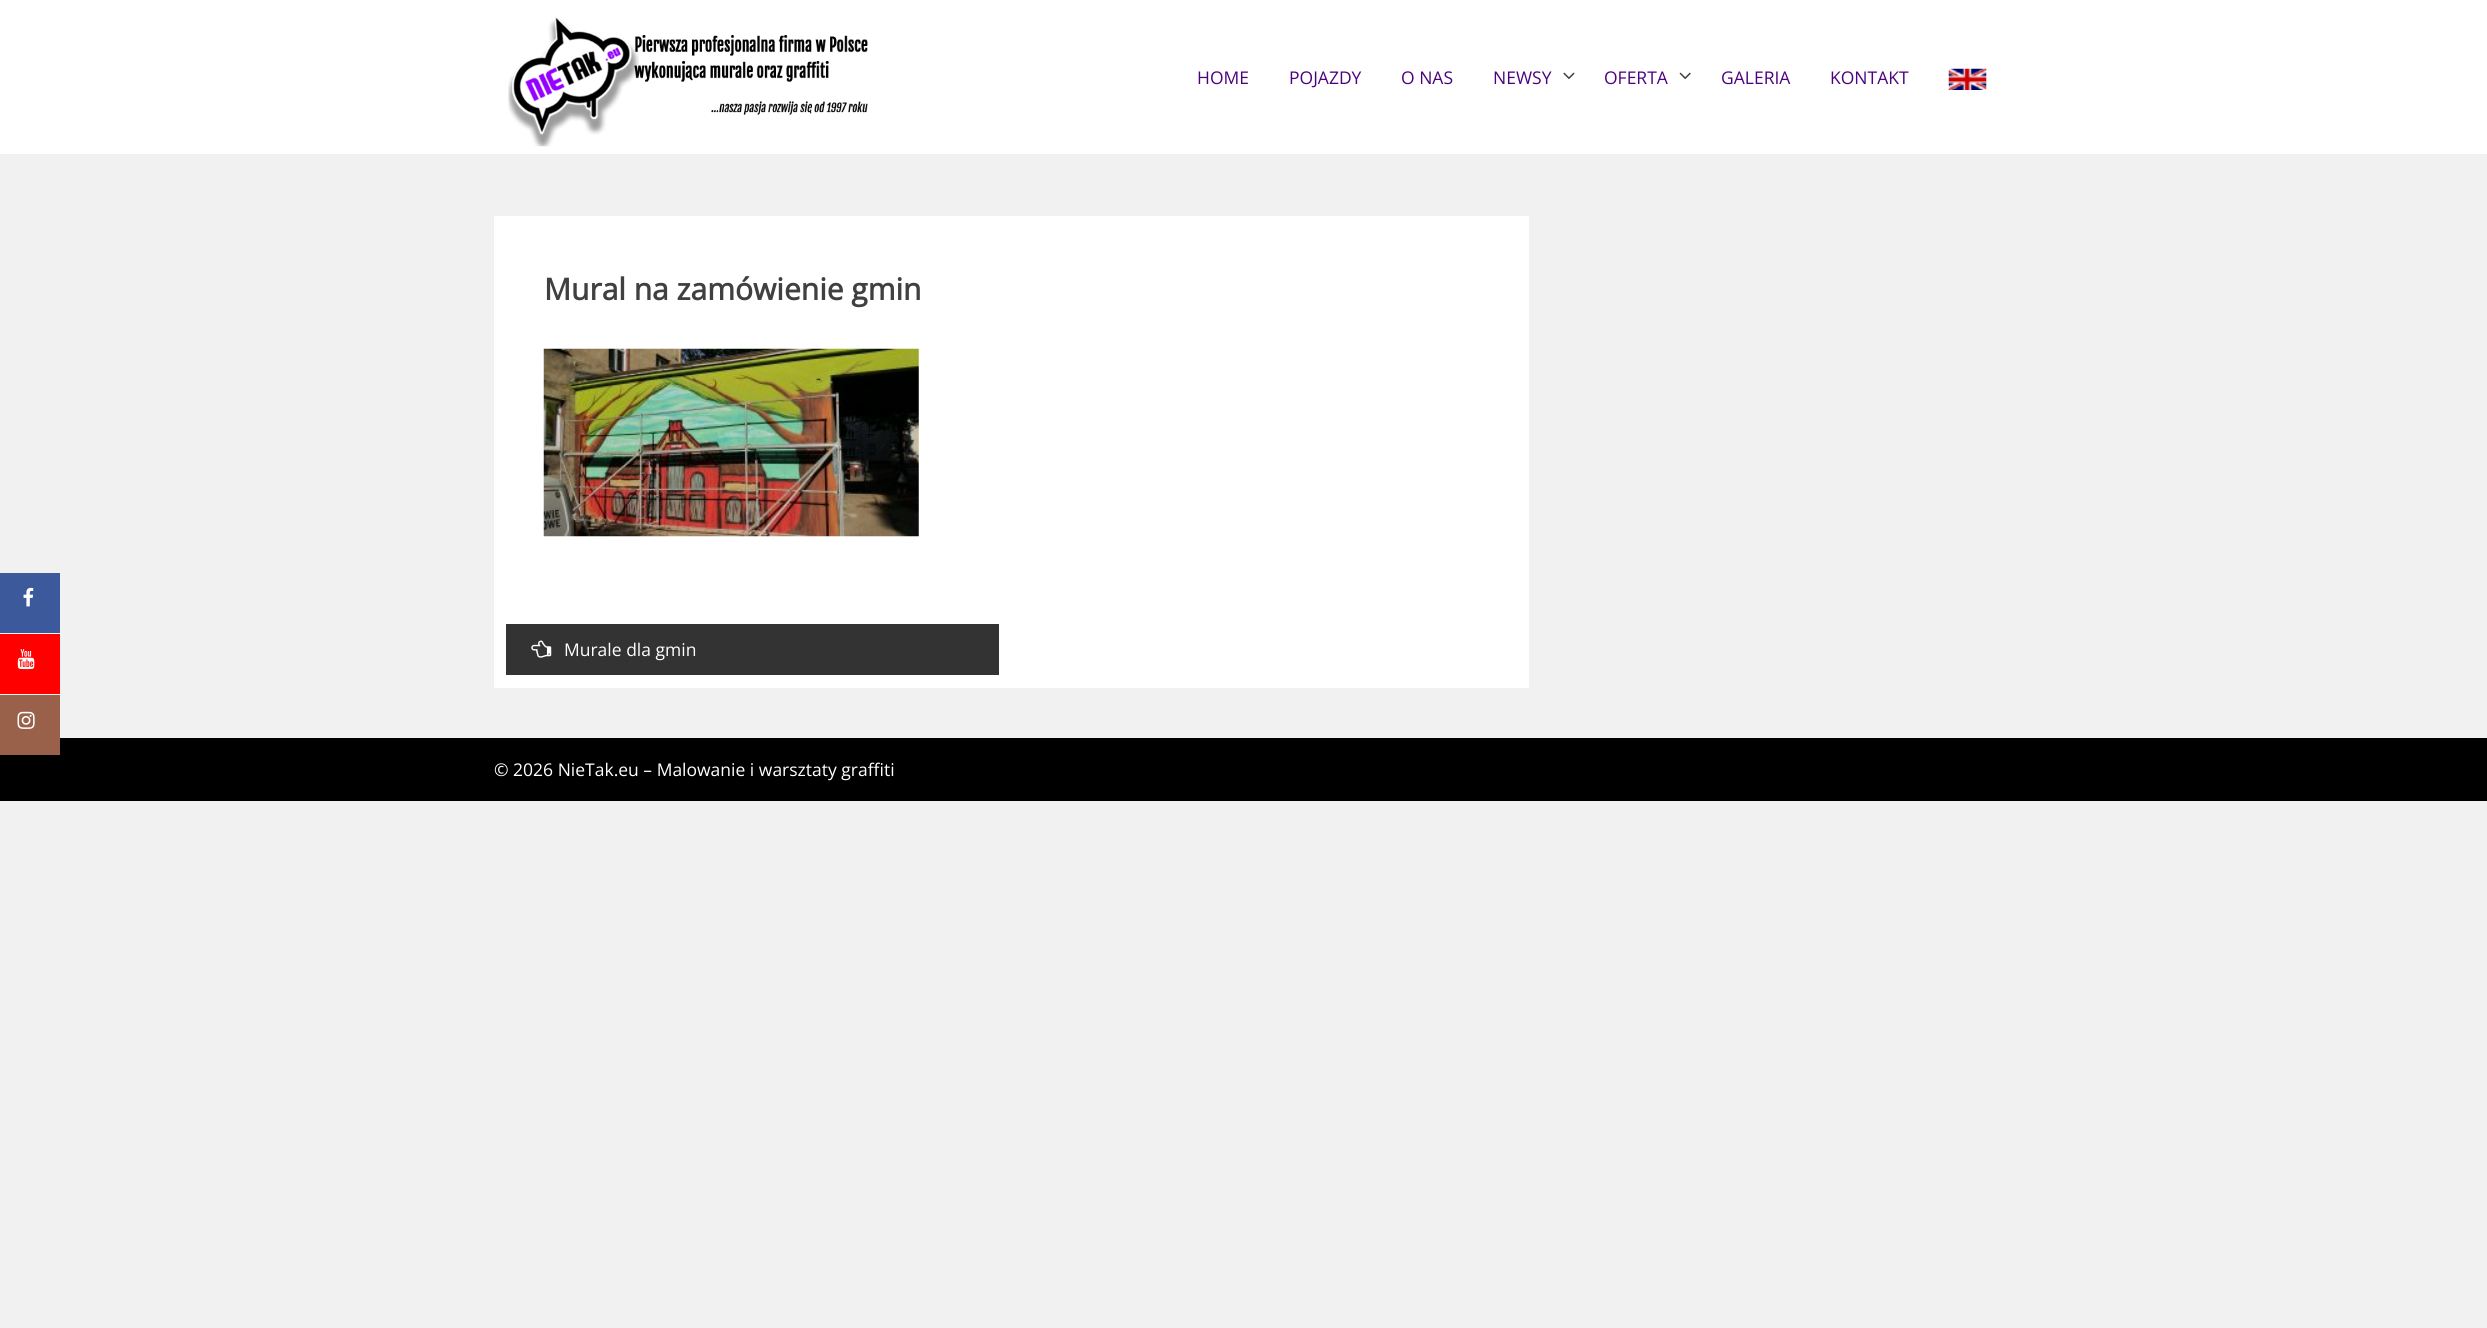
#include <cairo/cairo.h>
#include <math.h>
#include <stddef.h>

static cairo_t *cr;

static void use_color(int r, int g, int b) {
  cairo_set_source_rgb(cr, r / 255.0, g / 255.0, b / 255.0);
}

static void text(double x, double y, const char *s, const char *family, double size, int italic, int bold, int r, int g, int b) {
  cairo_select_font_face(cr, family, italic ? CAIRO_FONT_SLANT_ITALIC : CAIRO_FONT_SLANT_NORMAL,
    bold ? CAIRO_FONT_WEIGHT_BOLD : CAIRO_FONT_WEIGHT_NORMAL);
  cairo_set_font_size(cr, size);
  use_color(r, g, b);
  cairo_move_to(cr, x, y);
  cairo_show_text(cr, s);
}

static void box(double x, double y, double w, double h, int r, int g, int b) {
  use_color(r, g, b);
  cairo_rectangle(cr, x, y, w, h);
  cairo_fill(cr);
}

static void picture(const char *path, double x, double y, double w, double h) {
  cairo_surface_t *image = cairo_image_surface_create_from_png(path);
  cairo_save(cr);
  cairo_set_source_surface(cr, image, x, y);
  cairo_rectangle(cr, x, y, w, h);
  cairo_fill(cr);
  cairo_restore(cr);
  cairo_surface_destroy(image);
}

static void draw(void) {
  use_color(241, 241, 241);
  cairo_paint(cr);
  box(0, 0, 2487, 154, 255, 255, 255);
  picture("img_01.png", 508, 17, 360, 130);
  picture("img_02.png", 1563, 72, 12, 8);
  picture("img_03.png", 1679, 72, 12, 8);
  picture("img_04.png", 1948, 68, 39, 22);
  box(0, 573, 60, 60, 60, 89, 155);
  picture("img_05.png", 23, 587, 11, 20);
  box(0, 634, 60, 60, 255, 0, 0);
  picture("img_06.png", 17, 649, 18, 21);
  box(0, 738, 2487, 63, 0, 0, 0);
  box(0, 695, 60, 60, 153, 97, 74);
  picture("img_07.png", 17, 711, 18, 18);
  box(494, 216, 1035, 472, 255, 255, 255);
  picture("img_08.png", 543, 348, 376, 189);
  box(506, 624, 493, 51, 51, 51, 51);
  picture("img_09.png", 531, 640, 21, 18);
  text(1197, 84, "HOME", "Open Sans", 17.5, 0, 0, 76, 2, 127);
  text(1289, 84, "POJAZDY", "Open Sans", 17.5, 0, 0, 76, 2, 127);
  text(1401, 84, "O NAS", "Open Sans", 17.5, 0, 0, 76, 2, 127);
  text(1493, 84, "NEWSY", "Open Sans", 17.5, 0, 0, 76, 2, 127);
  text(1604, 84, "OFERTA", "Open Sans", 17.5, 0, 0, 76, 2, 127);
  text(1721, 84, "GALERIA", "Open Sans", 17.5, 0, 0, 76, 2, 127);
  text(1830, 84, "KONTAKT", "Open Sans", 17.5, 0, 0, 76, 2, 127);
  text(544, 300, "Mural na zamówienie gmin", "Open Sans", 30, 0, 1, 64, 64, 64);
  text(564, 656, "Murale dla gmin", "Open Sans", 17.5, 0, 0, 255, 255, 255);
  text(494, 776, "© 2026 NieTak.eu – Malowanie i warsztaty graffiti", "Open Sans", 17.5, 0, 0, 255, 255, 255);
}

int main(void) {
  cairo_surface_t *surface = cairo_image_surface_create(CAIRO_FORMAT_RGB24, 2487, 1328);
  cr = cairo_create(surface);
  cairo_font_options_t *options = cairo_font_options_create();
  cairo_font_options_set_hint_metrics(options, CAIRO_HINT_METRICS_OFF);
  cairo_font_options_set_hint_style(options, CAIRO_HINT_STYLE_NONE);
  cairo_set_font_options(cr, options);
  cairo_set_miter_limit(cr, 4);
  draw();
  cairo_surface_write_to_png(surface, "out.png");
  cairo_font_options_destroy(options);
  cairo_destroy(cr);
  cairo_surface_destroy(surface);
  return 0;
}
